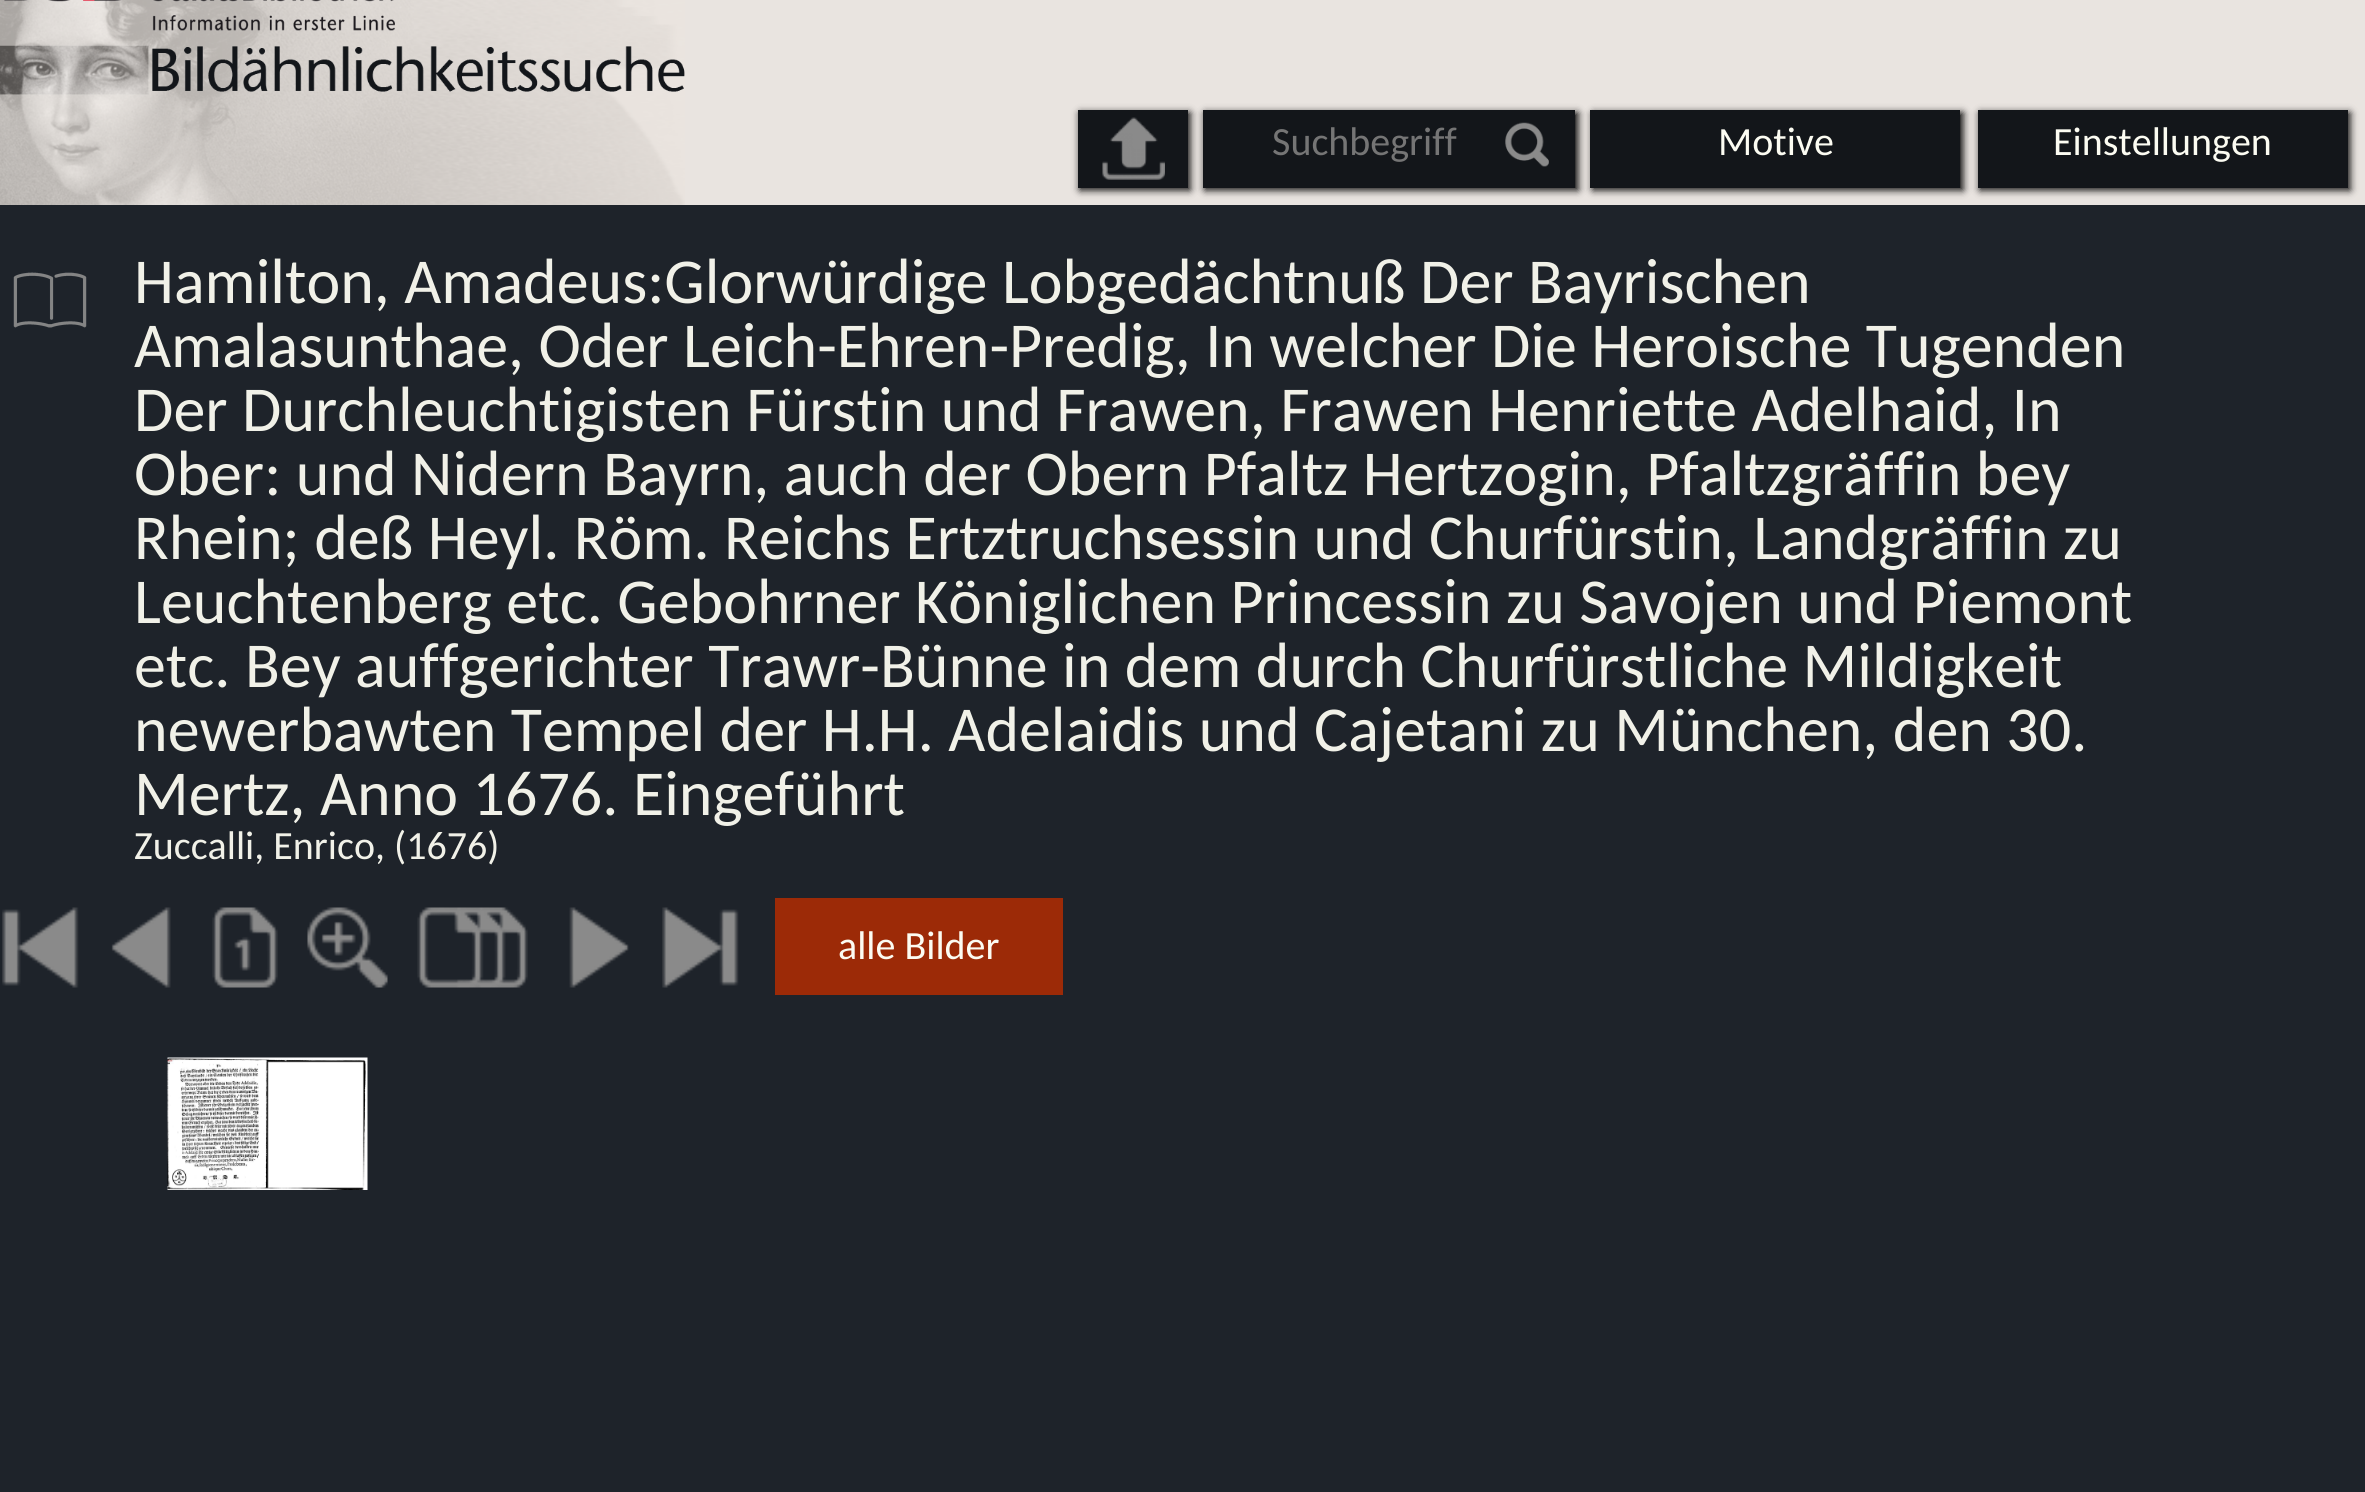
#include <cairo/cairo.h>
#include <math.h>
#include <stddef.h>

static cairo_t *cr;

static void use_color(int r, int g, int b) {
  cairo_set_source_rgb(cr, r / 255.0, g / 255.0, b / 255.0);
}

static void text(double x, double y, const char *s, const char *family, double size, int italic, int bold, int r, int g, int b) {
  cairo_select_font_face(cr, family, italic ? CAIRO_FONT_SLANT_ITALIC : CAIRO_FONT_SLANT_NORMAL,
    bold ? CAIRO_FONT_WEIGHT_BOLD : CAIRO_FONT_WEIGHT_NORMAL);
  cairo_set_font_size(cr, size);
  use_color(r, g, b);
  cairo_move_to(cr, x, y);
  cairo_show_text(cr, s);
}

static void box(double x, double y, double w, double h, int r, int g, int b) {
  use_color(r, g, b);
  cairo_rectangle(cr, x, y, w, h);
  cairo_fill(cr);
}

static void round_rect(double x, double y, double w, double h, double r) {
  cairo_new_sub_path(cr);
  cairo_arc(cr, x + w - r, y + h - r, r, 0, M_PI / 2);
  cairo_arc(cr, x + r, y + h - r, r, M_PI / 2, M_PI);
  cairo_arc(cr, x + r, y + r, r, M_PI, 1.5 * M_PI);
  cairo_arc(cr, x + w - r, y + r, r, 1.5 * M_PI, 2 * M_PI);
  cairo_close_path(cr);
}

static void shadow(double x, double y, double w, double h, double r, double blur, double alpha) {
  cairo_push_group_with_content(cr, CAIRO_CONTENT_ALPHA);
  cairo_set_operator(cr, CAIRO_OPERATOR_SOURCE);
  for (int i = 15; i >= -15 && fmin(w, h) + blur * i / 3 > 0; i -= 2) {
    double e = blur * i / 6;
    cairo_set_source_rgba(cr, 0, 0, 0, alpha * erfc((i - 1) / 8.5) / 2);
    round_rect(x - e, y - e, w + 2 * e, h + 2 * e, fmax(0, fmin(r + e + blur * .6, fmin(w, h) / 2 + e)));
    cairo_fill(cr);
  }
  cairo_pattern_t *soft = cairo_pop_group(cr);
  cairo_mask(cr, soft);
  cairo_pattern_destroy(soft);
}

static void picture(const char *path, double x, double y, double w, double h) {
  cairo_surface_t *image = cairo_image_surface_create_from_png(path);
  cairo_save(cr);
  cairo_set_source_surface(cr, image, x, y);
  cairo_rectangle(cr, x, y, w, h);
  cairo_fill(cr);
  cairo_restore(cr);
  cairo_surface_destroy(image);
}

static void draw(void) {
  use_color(30, 35, 42);
  cairo_paint(cr);
  box(0, 0, 2365, 205, 233, 228, 224);
  picture("img_01.png", 0, 0, 685, 205);
  use_color(0, 0, 0);
  shadow(1080, 113, 110, 77, 0, 4, 1);
  box(1078, 110, 110, 78, 19, 22, 26);
  picture("img_02.png", 1102, 117, 63, 63);
  use_color(0, 0, 0);
  shadow(1593, 113, 370, 77, 0, 4, 1);
  box(1590, 110, 370, 78, 19, 22, 26);
  use_color(0, 0, 0);
  shadow(1205, 113, 373, 77, 0, 4, 1);
  box(1203, 110, 372, 78, 19, 22, 26);
  picture("img_03.png", 1505, 122, 44, 45);
  use_color(0, 0, 0);
  shadow(1980, 113, 370, 77, 0, 4, 1);
  box(1978, 110, 370, 78, 19, 22, 26);
  picture("img_04.png", 13, 272, 74, 56);
  picture("img_05.png", 2, 907, 77, 81);
  picture("img_06.png", 111, 907, 60, 81);
  picture("img_07.png", 212, 907, 66, 81);
  picture("img_08.png", 307, 907, 81, 81);
  picture("img_09.png", 417, 907, 111, 81);
  picture("img_10.png", 569, 907, 60, 81);
  picture("img_11.png", 662, 907, 77, 81);
  box(775, 898, 288, 97, 156, 42, 7);
  picture("img_12.png", 167, 1057, 201, 133);
  text(1272, 155, "Suchbegriff", "Carlito", 40, 0, 0, 117, 117, 117);
  text(1718, 155, "Motive", "Carlito", 40, 0, 0, 252, 252, 242);
  text(2053, 155, "Einstellungen", "Carlito", 40, 0, 0, 252, 252, 242);
  text(134, 303, "Hamilton, Amadeus:Glorwürdige Lobgedächtnuß Der Bayrischen", "Carlito", 64, 0, 0, 241, 241, 232);
  text(134, 367, "Amalasunthae, Oder Leich-Ehren-Predig, In welcher Die Heroische Tugenden", "Carlito", 64, 0, 0, 241, 241, 232);
  text(134, 431, "Der Durchleuchtigisten Fürstin und Frawen, Frawen Henriette Adelhaid, In", "Carlito", 64, 0, 0, 241, 241, 232);
  text(134, 495, "Ober: und Nidern Bayrn, auch der Obern Pfaltz Hertzogin, Pfaltzgräffin bey", "Carlito", 64, 0, 0, 241, 241, 232);
  text(134, 559, "Rhein; deß Heyl. Röm. Reichs Ertztruchsessin und Churfürstin, Landgräffin zu", "Carlito", 64, 0, 0, 241, 241, 232);
  text(134, 623, "Leuchtenberg etc. Gebohrner Königlichen Princessin zu Savojen und Piemont", "Carlito", 64, 0, 0, 241, 241, 232);
  text(134, 687, "etc. Bey auffgerichter Trawr-Bünne in dem durch Churfürstliche Mildigkeit", "Carlito", 64, 0, 0, 241, 241, 232);
  text(134, 751, "newerbawten Tempel der H.H. Adelaidis und Cajetani zu München, den 30.", "Carlito", 64, 0, 0, 241, 241, 232);
  text(134, 815, "Mertz, Anno 1676. Eingeführt", "Carlito", 64, 0, 0, 241, 241, 232);
  text(134, 859, "Zuccalli, Enrico, (1676)", "Carlito", 40, 0, 0, 241, 241, 232);
  text(838, 959, "alle Bilder", "Carlito", 40, 0, 0, 252, 252, 242);
}

int main(void) {
  cairo_surface_t *surface = cairo_image_surface_create(CAIRO_FORMAT_RGB24, 2365, 1492);
  cr = cairo_create(surface);
  cairo_font_options_t *options = cairo_font_options_create();
  cairo_font_options_set_hint_metrics(options, CAIRO_HINT_METRICS_OFF);
  cairo_font_options_set_hint_style(options, CAIRO_HINT_STYLE_NONE);
  cairo_set_font_options(cr, options);
  cairo_set_miter_limit(cr, 4);
  draw();
  cairo_surface_write_to_png(surface, "out.png");
  cairo_font_options_destroy(options);
  cairo_destroy(cr);
  cairo_surface_destroy(surface);
  return 0;
}
